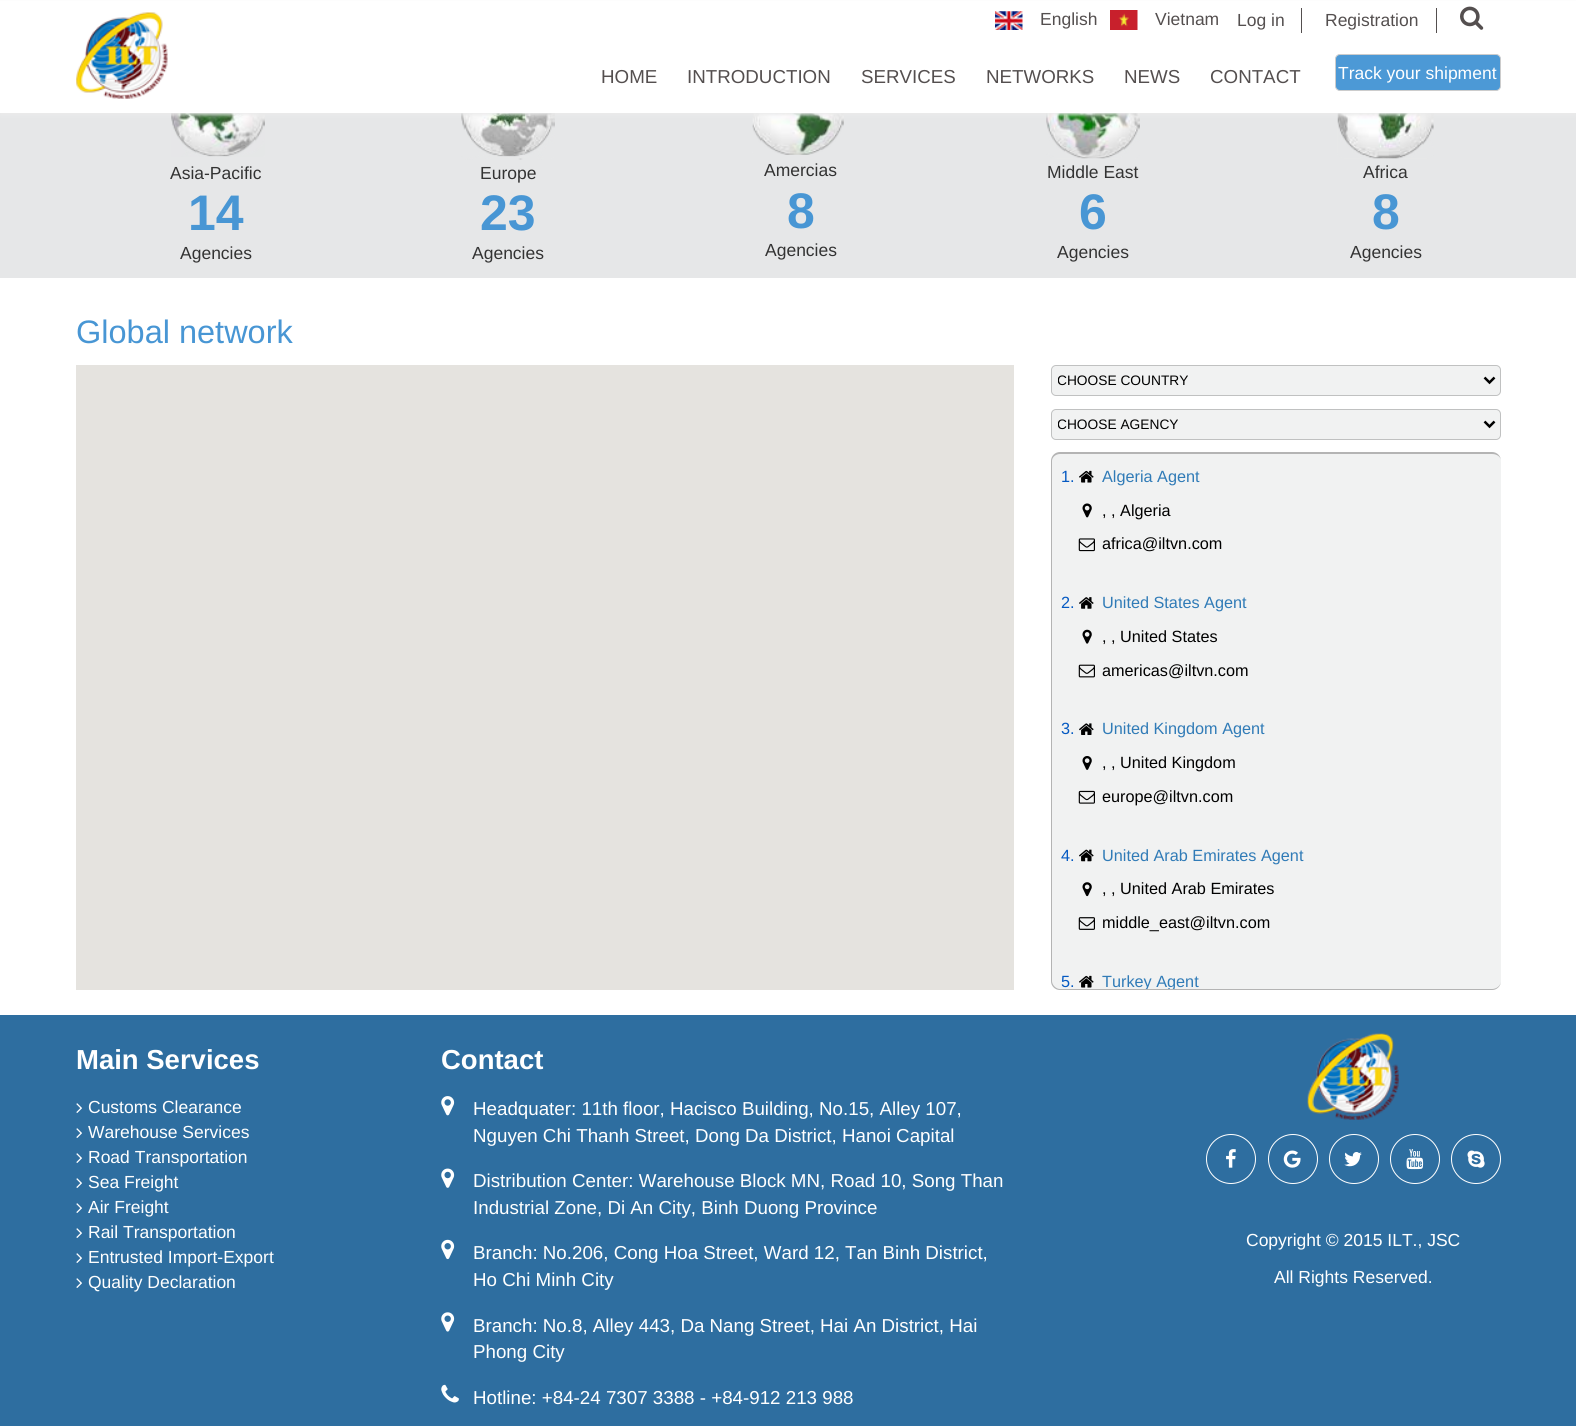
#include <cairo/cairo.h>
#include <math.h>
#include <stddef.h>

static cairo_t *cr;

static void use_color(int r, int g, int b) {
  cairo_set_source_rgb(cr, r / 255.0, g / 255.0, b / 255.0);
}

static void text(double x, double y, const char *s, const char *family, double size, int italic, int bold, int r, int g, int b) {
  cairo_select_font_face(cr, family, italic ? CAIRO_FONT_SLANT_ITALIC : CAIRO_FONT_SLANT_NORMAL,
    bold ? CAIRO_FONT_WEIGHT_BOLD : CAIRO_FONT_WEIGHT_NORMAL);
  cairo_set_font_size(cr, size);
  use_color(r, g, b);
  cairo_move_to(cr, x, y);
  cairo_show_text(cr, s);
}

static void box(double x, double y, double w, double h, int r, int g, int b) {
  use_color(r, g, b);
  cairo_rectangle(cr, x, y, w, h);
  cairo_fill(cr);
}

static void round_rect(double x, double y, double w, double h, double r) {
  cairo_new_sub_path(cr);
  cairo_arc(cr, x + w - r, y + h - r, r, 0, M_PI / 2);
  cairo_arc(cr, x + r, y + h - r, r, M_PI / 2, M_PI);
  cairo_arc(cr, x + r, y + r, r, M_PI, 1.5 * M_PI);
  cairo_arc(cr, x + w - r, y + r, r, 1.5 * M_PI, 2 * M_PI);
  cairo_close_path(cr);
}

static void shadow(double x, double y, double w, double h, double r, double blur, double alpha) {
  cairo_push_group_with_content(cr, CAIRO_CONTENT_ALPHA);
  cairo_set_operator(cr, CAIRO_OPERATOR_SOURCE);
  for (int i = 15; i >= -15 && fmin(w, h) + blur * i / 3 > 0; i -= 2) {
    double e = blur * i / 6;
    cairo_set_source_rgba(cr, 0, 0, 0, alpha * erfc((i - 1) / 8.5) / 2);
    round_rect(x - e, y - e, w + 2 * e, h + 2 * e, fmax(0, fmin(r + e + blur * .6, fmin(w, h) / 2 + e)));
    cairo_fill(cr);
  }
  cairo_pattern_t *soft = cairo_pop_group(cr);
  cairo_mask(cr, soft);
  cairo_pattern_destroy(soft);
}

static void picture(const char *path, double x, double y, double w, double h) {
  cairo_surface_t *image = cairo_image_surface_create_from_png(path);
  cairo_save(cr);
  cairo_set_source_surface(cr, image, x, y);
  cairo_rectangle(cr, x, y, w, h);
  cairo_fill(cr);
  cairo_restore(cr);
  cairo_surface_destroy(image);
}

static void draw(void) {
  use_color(255, 255, 255);
  cairo_paint(cr);
  box(0, 113, 1576, 165, 230, 231, 232);
  picture("img_05.png", 171, 113, 94, 44);
  picture("img_06.png", 461, 113, 94, 47);
  picture("img_07.png", 752, 113, 92, 42);
  picture("img_08.png", 1046, 113, 94, 46);
  picture("img_09.png", 1337, 113, 97, 46);
  use_color(235, 235, 235);
  shadow(0, 3, 1576, 112, 0, 2, 1);
  box(0, 1, 1576, 112, 255, 255, 255);
  picture("img_01.png", 76, 12, 92, 87);
  picture("img_02.png", 995, 11, 28, 19);
  picture("img_03.png", 1110, 10, 28, 20);
  box(1301, 8, 1, 25, 84, 79, 79);
  box(1436, 8, 1, 25, 84, 79, 79);
  picture("img_04.png", 1460, 6, 24, 24);
  use_color(76, 153, 214);
  round_rect(1335.5, 54.5, 165, 36, 4.5);
  cairo_fill_preserve(cr);
  use_color(204, 204, 204);
  cairo_set_line_width(cr, 1);
  cairo_stroke(cr);
  box(76, 365, 938, 625, 229, 227, 223);
  use_color(241, 242, 242);
  round_rect(1051.5, 365.5, 449, 30, 4.5);
  cairo_fill_preserve(cr);
  use_color(192, 193, 193);
  cairo_stroke(cr);
  cairo_new_path(cr);
  cairo_move_to(cr, 1484.5, 377.5);
  cairo_line_to(cr, 1489.5, 382.5);
  cairo_line_to(cr, 1494.5, 377.5);
  use_color(0, 0, 0);
  cairo_set_line_width(cr, 2.5);
  cairo_stroke(cr);
  use_color(241, 242, 242);
  round_rect(1051.5, 409.5, 449, 30, 4.5);
  cairo_fill_preserve(cr);
  use_color(192, 193, 193);
  cairo_set_line_width(cr, 1);
  cairo_stroke(cr);
  cairo_new_path(cr);
  cairo_move_to(cr, 1484.5, 421.5);
  cairo_line_to(cr, 1489.5, 426.5);
  cairo_line_to(cr, 1494.5, 421.5);
  use_color(0, 0, 0);
  cairo_set_line_width(cr, 2.5);
  cairo_stroke(cr);
  use_color(241, 242, 242);
  round_rect(1051, 453, 450, 537, 9);
  cairo_fill(cr);
  use_color(180, 180, 180);
  cairo_set_fill_rule(cr, CAIRO_FILL_RULE_EVEN_ODD);
  cairo_new_path(cr);
  cairo_move_to(cr, 1060, 452);
  cairo_line_to(cr, 1492, 452);
  cairo_curve_to(cr, 1497, 452, 1501, 456, 1501, 461);
  cairo_line_to(cr, 1501, 981);
  cairo_curve_to(cr, 1501, 986, 1497, 990, 1492, 990);
  cairo_line_to(cr, 1060, 990);
  cairo_curve_to(cr, 1055, 990, 1051, 986, 1051, 981);
  cairo_line_to(cr, 1051, 461);
  cairo_curve_to(cr, 1051, 456, 1055, 452, 1060, 452);
  cairo_close_path(cr);
  cairo_move_to(cr, 1060, 454);
  cairo_line_to(cr, 1492, 454);
  cairo_curve_to(cr, 1497, 454, 1501, 457, 1501, 461);
  cairo_line_to(cr, 1501, 981);
  cairo_curve_to(cr, 1501, 985, 1497, 989, 1492, 989);
  cairo_line_to(cr, 1060, 989);
  cairo_curve_to(cr, 1056, 989, 1052, 985, 1052, 981);
  cairo_line_to(cr, 1052, 461);
  cairo_curve_to(cr, 1052, 457, 1056, 454, 1060, 454);
  cairo_close_path(cr);
  cairo_fill(cr);
  picture("img_10.png", 1079, 470, 15, 13);
  picture("img_11.png", 1082, 503, 10, 15);
  picture("img_12.png", 1078, 538, 17, 14);
  picture("img_13.png", 1079, 597, 15, 12);
  picture("img_14.png", 1082, 629, 10, 15);
  picture("img_15.png", 1078, 664, 17, 14);
  picture("img_16.png", 1079, 723, 15, 12);
  picture("img_17.png", 1082, 756, 10, 14);
  picture("img_18.png", 1078, 790, 17, 14);
  picture("img_19.png", 1079, 849, 15, 13);
  picture("img_20.png", 1082, 882, 10, 15);
  picture("img_21.png", 1078, 917, 17, 13);
  picture("img_10.png", 1079, 975, 15, 13);
  box(0, 1015, 1576, 411, 46, 110, 160);
  picture("img_22.png", 76, 1103, 6, 10);
  picture("img_22.png", 76, 1128, 6, 10);
  picture("img_22.png", 76, 1153, 6, 10);
  picture("img_22.png", 76, 1178, 6, 10);
  picture("img_22.png", 76, 1203, 6, 10);
  picture("img_22.png", 76, 1228, 6, 10);
  picture("img_22.png", 76, 1253, 6, 10);
  picture("img_22.png", 76, 1278, 6, 10);
  picture("img_23.png", 441, 1096, 14, 20);
  picture("img_24.png", 441, 1168, 14, 20);
  picture("img_25.png", 441, 1239, 14, 21);
  picture("img_26.png", 441, 1312, 14, 20);
  picture("img_27.png", 441, 1384, 18, 19);
  picture("img_28.png", 1307, 1033, 92, 87);
  cairo_arc(cr, 1231, 1159, 24.5, 0, 2 * M_PI);
  use_color(255, 255, 255);
  cairo_set_line_width(cr, 1);
  cairo_stroke(cr);
  picture("img_29.png", 1226, 1149, 10, 19);
  cairo_arc(cr, 1293, 1159, 24.5, 0, 2 * M_PI);
  cairo_stroke(cr);
  picture("img_30.png", 1283, 1150, 18, 18);
  cairo_arc(cr, 1354, 1159, 24.5, 0, 2 * M_PI);
  cairo_stroke(cr);
  picture("img_31.png", 1344, 1152, 18, 15);
  cairo_arc(cr, 1415, 1159, 24.5, 0, 2 * M_PI);
  cairo_stroke(cr);
  picture("img_32.png", 1406, 1149, 18, 21);
  cairo_arc(cr, 1476, 1159, 24.5, 0, 2 * M_PI);
  cairo_stroke(cr);
  picture("img_33.png", 1467, 1150, 18, 18);
  text(1040, 25, "English", "Liberation Sans", 17.5, 0, 0, 84, 79, 79);
  text(1155, 25, "Vietnam", "Liberation Sans", 17.5, 0, 0, 84, 79, 79);
  text(1237, 26, "Log in", "Liberation Sans", 17.5, 0, 0, 84, 79, 79);
  text(1325, 26, "Registration", "Liberation Sans", 17.5, 0, 0, 84, 79, 79);
  text(601, 83, "HOME", "Liberation Sans", 18.75, 0, 0, 84, 79, 79);
  text(687, 83, "INTRODUCTION", "Liberation Sans", 18.75, 0, 0, 84, 79, 79);
  text(861, 83, "SERVICES", "Liberation Sans", 18.75, 0, 0, 84, 79, 79);
  text(986, 83, "NETWORKS", "Liberation Sans", 18.75, 0, 0, 84, 79, 79);
  text(1124, 83, "NEWS", "Liberation Sans", 18.75, 0, 0, 84, 79, 79);
  text(1210, 83, "CONTACT", "Liberation Sans", 18.75, 0, 0, 84, 79, 79);
  text(1338, 79, "Track your shipment", "Liberation Sans", 17.5, 0, 0, 255, 255, 255);
  text(170, 179, "Asia-Pacific", "Liberation Sans", 17.5, 0, 0, 51, 51, 51);
  text(188, 230, "14", "Liberation Sans", 50, 0, 1, 72, 150, 212);
  text(180, 259, "Agencies", "Liberation Sans", 17.5, 0, 0, 51, 51, 51);
  text(480, 179, "Europe", "Liberation Sans", 17.5, 0, 0, 51, 51, 51);
  text(480, 230, "23", "Liberation Sans", 50, 0, 1, 72, 150, 212);
  text(472, 259, "Agencies", "Liberation Sans", 17.5, 0, 0, 51, 51, 51);
  text(764, 176, "Amercias", "Liberation Sans", 17.5, 0, 0, 51, 51, 51);
  text(787, 228, "8", "Liberation Sans", 50, 0, 1, 72, 150, 212);
  text(765, 256, "Agencies", "Liberation Sans", 17.5, 0, 0, 51, 51, 51);
  text(1047, 178, "Middle East", "Liberation Sans", 17.5, 0, 0, 51, 51, 51);
  text(1079, 229, "6", "Liberation Sans", 50, 0, 1, 72, 150, 212);
  text(1057, 258, "Agencies", "Liberation Sans", 17.5, 0, 0, 51, 51, 51);
  text(1363, 178, "Africa", "Liberation Sans", 17.5, 0, 0, 51, 51, 51);
  text(1372, 229, "8", "Liberation Sans", 50, 0, 1, 72, 150, 212);
  text(1350, 258, "Agencies", "Liberation Sans", 17.5, 0, 0, 51, 51, 51);
  text(76, 343, "Global network", "Liberation Sans", 32.5, 0, 0, 72, 150, 212);
  cairo_save(cr);
  cairo_set_fill_rule(cr, CAIRO_FILL_RULE_WINDING);
  cairo_rectangle(cr, 1058, 371, 422, 18);
  cairo_clip(cr);
  text(1057, 385, "CHOOSE COUNTRY", "Liberation Sans", 13.75, 0, 0, 0, 0, 0);
  cairo_restore(cr);
  cairo_save(cr);
  cairo_set_fill_rule(cr, CAIRO_FILL_RULE_WINDING);
  cairo_rectangle(cr, 1058, 415, 422, 18);
  cairo_clip(cr);
  text(1057, 429, "CHOOSE AGENCY", "Liberation Sans", 13.75, 0, 0, 0, 0, 0);
  cairo_restore(cr);
  text(1061, 482, "1.", "Liberation Sans", 16.25, 0, 0, 4, 89, 194);
  text(1102, 482, "Algeria Agent", "Liberation Sans", 16.25, 0, 0, 48, 123, 183);
  text(1102, 516, ", , Algeria", "Liberation Sans", 16.25, 0, 0, 0, 0, 0);
  text(1102, 549, "africa@iltvn.com", "Liberation Sans", 16.25, 0, 0, 0, 0, 0);
  text(1061, 608, "2.", "Liberation Sans", 16.25, 0, 0, 4, 89, 194);
  text(1102, 608, "United States Agent", "Liberation Sans", 16.25, 0, 0, 48, 123, 183);
  text(1102, 642, ", , United States", "Liberation Sans", 16.25, 0, 0, 0, 0, 0);
  text(1102, 676, "americas@iltvn.com", "Liberation Sans", 16.25, 0, 0, 0, 0, 0);
  text(1061, 734, "3.", "Liberation Sans", 16.25, 0, 0, 4, 89, 194);
  text(1102, 734, "United Kingdom Agent", "Liberation Sans", 16.25, 0, 0, 48, 123, 183);
  text(1102, 768, ", , United Kingdom", "Liberation Sans", 16.25, 0, 0, 0, 0, 0);
  text(1102, 802, "europe@iltvn.com", "Liberation Sans", 16.25, 0, 0, 0, 0, 0);
  text(1061, 861, "4.", "Liberation Sans", 16.25, 0, 0, 4, 89, 194);
  text(1102, 861, "United Arab Emirates Agent", "Liberation Sans", 16.25, 0, 0, 48, 123, 183);
  text(1102, 894, ", , United Arab Emirates", "Liberation Sans", 16.25, 0, 0, 0, 0, 0);
  text(1102, 928, "middle_east@iltvn.com", "Liberation Sans", 16.25, 0, 0, 0, 0, 0);
  text(1061, 987, "5.", "Liberation Sans", 16.25, 0, 0, 4, 89, 194);
  cairo_save(cr);
  cairo_set_fill_rule(cr, CAIRO_FILL_RULE_WINDING);
  cairo_new_path(cr);
  cairo_move_to(cr, 1060, 454);
  cairo_line_to(cr, 1492.5, 454);
  cairo_curve_to(cr, 1497.5, 454, 1501, 457, 1501, 461);
  cairo_line_to(cr, 1501, 981);
  cairo_curve_to(cr, 1501, 985.5, 1497.5, 989, 1492.5, 989);
  cairo_line_to(cr, 1060, 989);
  cairo_curve_to(cr, 1056, 989, 1052.5, 985.5, 1052.5, 981);
  cairo_line_to(cr, 1052.5, 461);
  cairo_curve_to(cr, 1052.5, 457, 1056, 454, 1060, 454);
  cairo_close_path(cr);
  cairo_clip(cr);
  text(1102, 987, "Turkey Agent", "Liberation Sans", 16.25, 0, 0, 48, 123, 183);
  cairo_restore(cr);
  text(76, 1069, "Main Services", "Liberation Sans", 27.5, 0, 1, 255, 255, 255);
  text(88, 1113, "Customs Clearance", "Liberation Sans", 17.5, 0, 0, 255, 255, 255);
  text(88, 1138, "Warehouse Services", "Liberation Sans", 17.5, 0, 0, 255, 255, 255);
  text(88, 1163, "Road Transportation", "Liberation Sans", 17.5, 0, 0, 255, 255, 255);
  text(88, 1188, "Sea Freight", "Liberation Sans", 17.5, 0, 0, 255, 255, 255);
  text(88, 1213, "Air Freight", "Liberation Sans", 17.5, 0, 0, 255, 255, 255);
  text(88, 1238, "Rail Transportation", "Liberation Sans", 17.5, 0, 0, 255, 255, 255);
  text(88, 1263, "Entrusted Import-Export", "Liberation Sans", 17.5, 0, 0, 255, 255, 255);
  text(88, 1288, "Quality Declaration", "Liberation Sans", 17.5, 0, 0, 255, 255, 255);
  text(441, 1069, "Contact", "Liberation Sans", 27.5, 0, 1, 255, 255, 255);
  text(473, 1115, "Headquater: 11th floor, Hacisco Building, No.15, Alley 107,", "Liberation Sans", 18.75, 0, 0, 255, 255, 255);
  text(473, 1142, "Nguyen Chi Thanh Street, Dong Da District, Hanoi Capital", "Liberation Sans", 18.75, 0, 0, 255, 255, 255);
  text(473, 1187, "Distribution Center: Warehouse Block MN, Road 10, Song Than", "Liberation Sans", 18.75, 0, 0, 255, 255, 255);
  text(473, 1214, "Industrial Zone, Di An City, Binh Duong Province", "Liberation Sans", 18.75, 0, 0, 255, 255, 255);
  text(473, 1259, "Branch: No.206, Cong Hoa Street, Ward 12, Tan Binh District,", "Liberation Sans", 18.75, 0, 0, 255, 255, 255);
  text(473, 1286, "Ho Chi Minh City", "Liberation Sans", 18.75, 0, 0, 255, 255, 255);
  text(473, 1332, "Branch: No.8, Alley 443, Da Nang Street, Hai An District, Hai", "Liberation Sans", 18.75, 0, 0, 255, 255, 255);
  text(473, 1358, "Phong City", "Liberation Sans", 18.75, 0, 0, 255, 255, 255);
  text(473, 1404, "Hotline: +84-24 7307 3388 - +84-912 213 988", "Liberation Sans", 18.75, 0, 0, 255, 255, 255);
  text(1246, 1246, "Copyright © 2015 ILT., JSC", "Liberation Sans", 17.5, 0, 0, 255, 255, 255);
  text(1274, 1283, "All Rights Reserved.", "Liberation Sans", 17.5, 0, 0, 255, 255, 255);
}

int main(void) {
  cairo_surface_t *surface = cairo_image_surface_create(CAIRO_FORMAT_RGB24, 1576, 1426);
  cr = cairo_create(surface);
  cairo_font_options_t *options = cairo_font_options_create();
  cairo_font_options_set_hint_metrics(options, CAIRO_HINT_METRICS_OFF);
  cairo_font_options_set_hint_style(options, CAIRO_HINT_STYLE_NONE);
  cairo_set_font_options(cr, options);
  cairo_set_miter_limit(cr, 4);
  draw();
  cairo_surface_write_to_png(surface, "out.png");
  cairo_font_options_destroy(options);
  cairo_destroy(cr);
  cairo_surface_destroy(surface);
  return 0;
}
